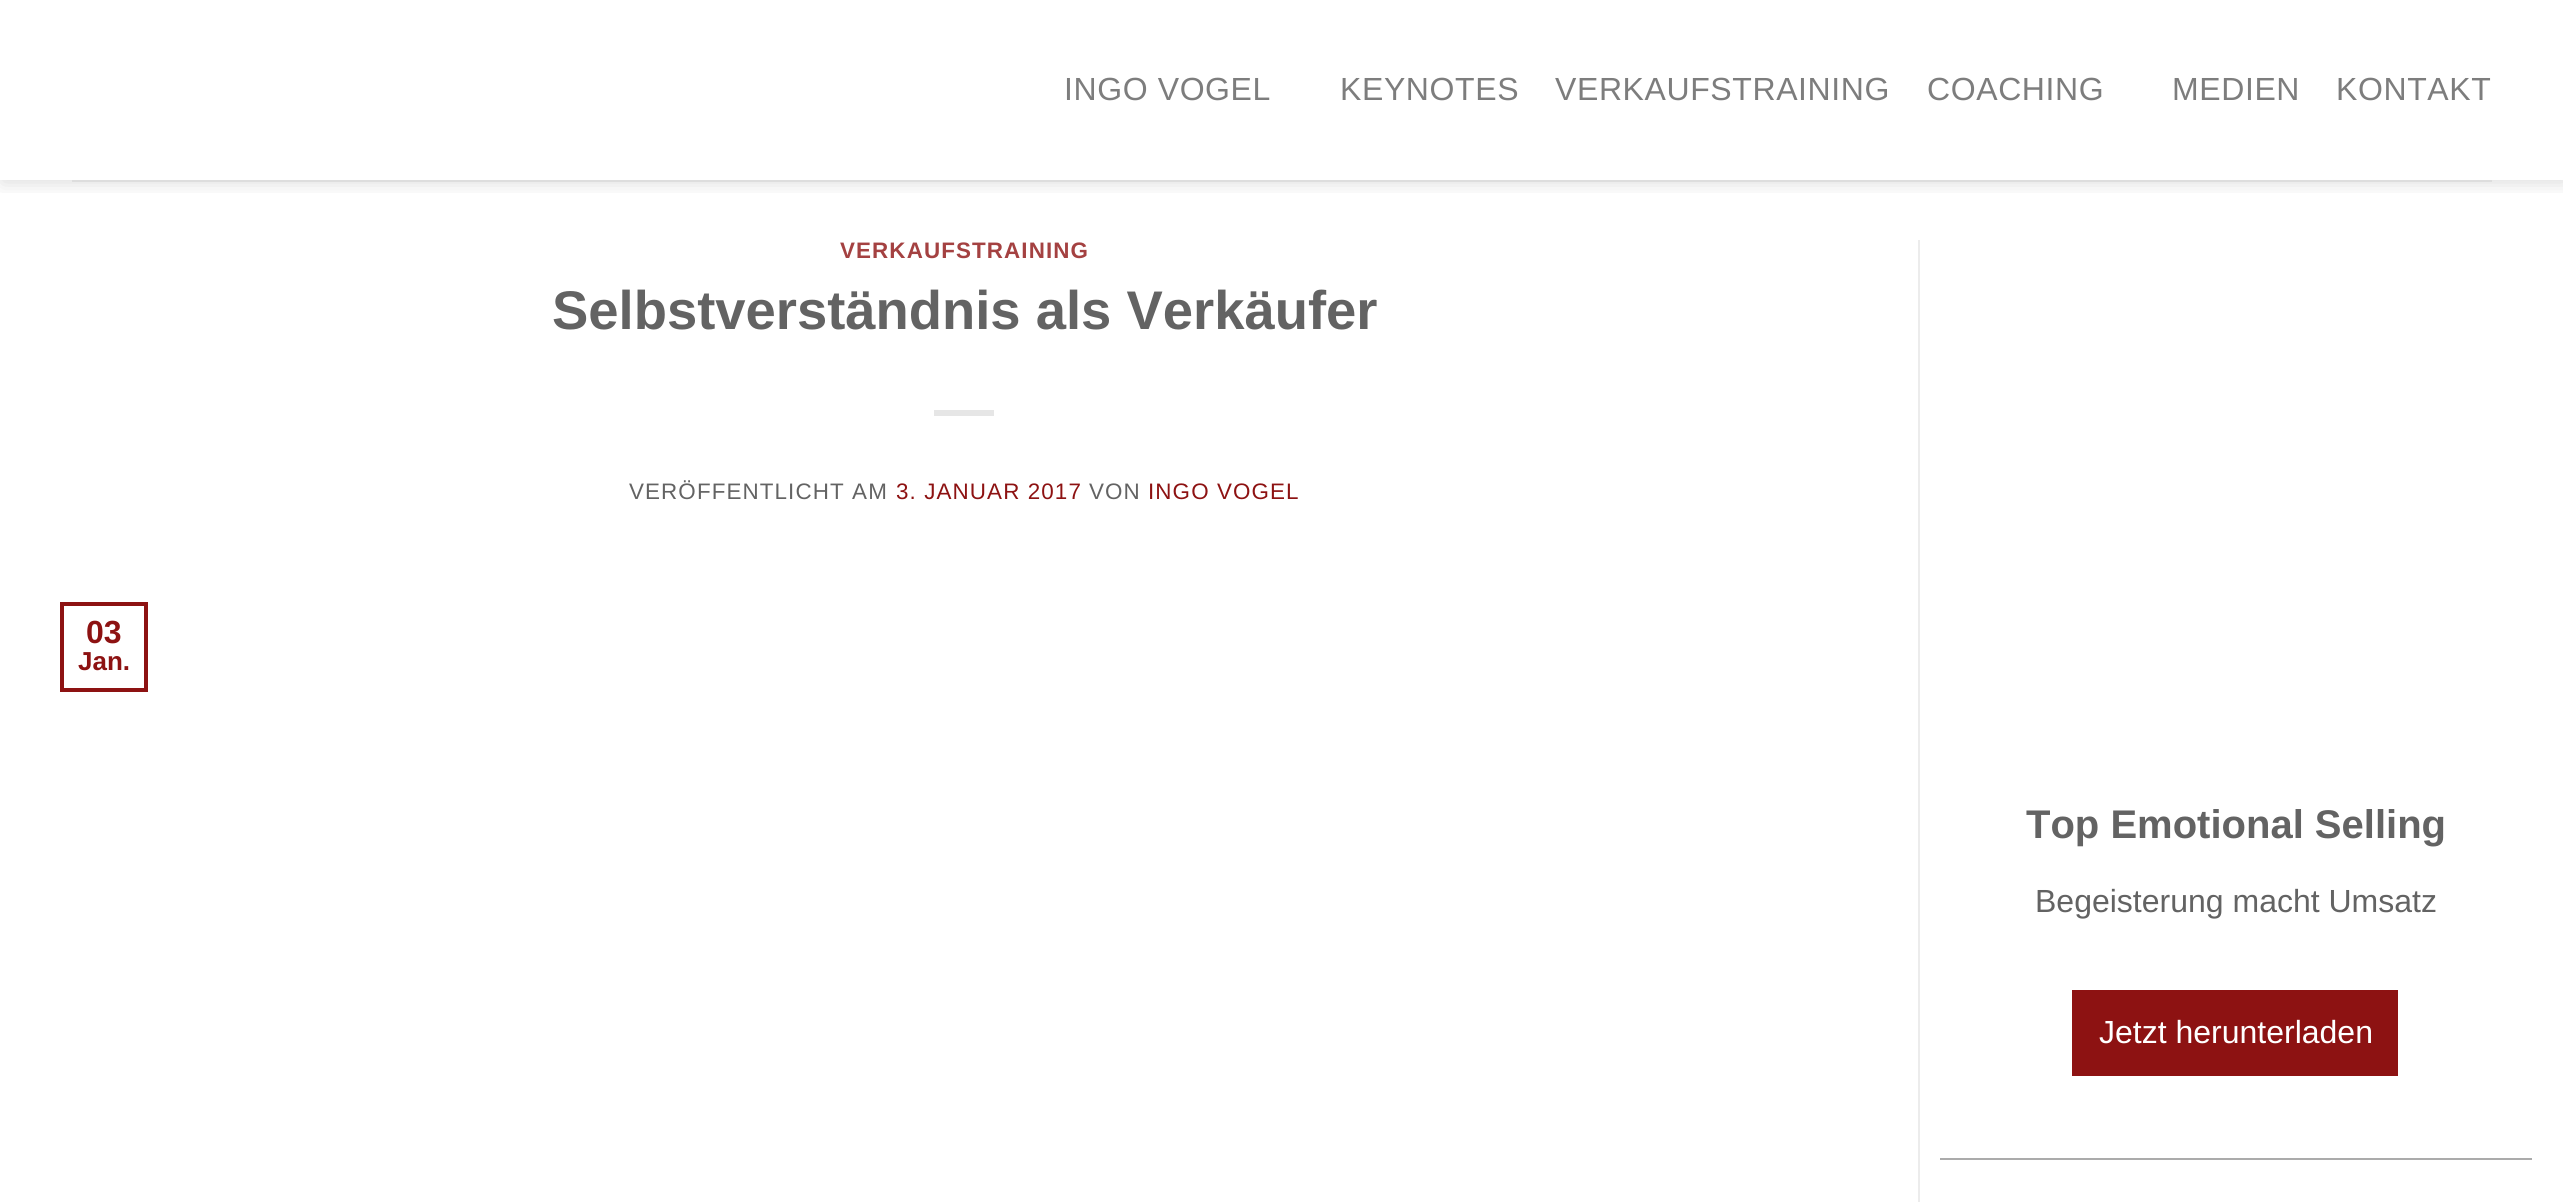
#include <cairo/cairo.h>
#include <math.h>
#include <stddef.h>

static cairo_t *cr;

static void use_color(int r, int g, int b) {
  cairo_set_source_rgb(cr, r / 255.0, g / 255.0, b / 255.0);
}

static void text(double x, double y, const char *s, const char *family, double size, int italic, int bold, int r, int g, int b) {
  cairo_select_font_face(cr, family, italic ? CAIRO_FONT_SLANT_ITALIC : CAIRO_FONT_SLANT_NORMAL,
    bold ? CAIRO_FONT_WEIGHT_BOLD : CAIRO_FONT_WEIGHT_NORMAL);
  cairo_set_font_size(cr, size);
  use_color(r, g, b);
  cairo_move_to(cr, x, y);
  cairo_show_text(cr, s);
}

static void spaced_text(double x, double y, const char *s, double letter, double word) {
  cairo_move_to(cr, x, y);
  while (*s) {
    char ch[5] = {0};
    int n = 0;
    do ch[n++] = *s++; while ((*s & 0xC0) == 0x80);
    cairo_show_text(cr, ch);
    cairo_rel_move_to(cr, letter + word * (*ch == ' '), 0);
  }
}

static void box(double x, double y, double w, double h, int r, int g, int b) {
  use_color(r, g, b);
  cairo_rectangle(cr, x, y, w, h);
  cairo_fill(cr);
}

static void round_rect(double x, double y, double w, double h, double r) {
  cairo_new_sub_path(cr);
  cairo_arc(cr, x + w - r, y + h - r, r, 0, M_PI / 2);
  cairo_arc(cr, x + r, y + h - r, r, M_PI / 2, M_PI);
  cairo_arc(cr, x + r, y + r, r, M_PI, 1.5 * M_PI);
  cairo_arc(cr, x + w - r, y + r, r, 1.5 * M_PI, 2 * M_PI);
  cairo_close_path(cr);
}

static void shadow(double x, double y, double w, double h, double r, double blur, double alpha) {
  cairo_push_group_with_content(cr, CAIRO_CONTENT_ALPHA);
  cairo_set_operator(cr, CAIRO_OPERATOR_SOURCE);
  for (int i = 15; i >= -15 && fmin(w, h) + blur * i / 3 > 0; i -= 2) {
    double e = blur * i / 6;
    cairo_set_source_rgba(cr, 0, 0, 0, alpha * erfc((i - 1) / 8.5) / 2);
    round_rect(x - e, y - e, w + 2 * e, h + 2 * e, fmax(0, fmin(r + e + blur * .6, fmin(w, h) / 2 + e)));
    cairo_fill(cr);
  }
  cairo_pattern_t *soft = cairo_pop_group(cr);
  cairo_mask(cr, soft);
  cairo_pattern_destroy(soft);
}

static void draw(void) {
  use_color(255, 255, 255);
  cairo_paint(cr);
  cairo_save(cr);
  cairo_rectangle(cr, 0, 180, 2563, 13);
  cairo_clip(cr);
  use_color(0, 0, 0);
  shadow(2, 2, 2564, 180, 0, 10, 0.15);
  cairo_restore(cr);
  box(72, 180, 2420, 2, 221, 221, 221);
  box(934, 410, 60, 6, 230, 230, 230);
  cairo_rectangle(cr, 62, 604, 84, 86);
  use_color(141, 18, 18);
  cairo_set_line_width(cr, 4);
  cairo_stroke(cr);
  box(1918, 240, 2, 962, 236, 236, 236);
  box(1940, 1158, 592, 2, 171, 171, 171);
  box(2072, 990, 326, 86, 141, 18, 18);
  cairo_select_font_face(cr, "Liberation Sans", CAIRO_FONT_SLANT_NORMAL, CAIRO_FONT_WEIGHT_NORMAL);
  cairo_set_font_size(cr, 32);
  use_color(125, 125, 125);
  spaced_text(1064, 100, "INGO VOGEL", 0.6, 0);
  spaced_text(1340, 100, "KEYNOTES", 0.6, 0);
  spaced_text(1555, 100, "VERKAUFSTRAINING", 0.6, 0);
  spaced_text(1927, 100, "COACHING", 0.6, 0);
  spaced_text(2172, 100, "MEDIEN", 0.6, 0);
  spaced_text(2336, 100, "KONTAKT", 0.6, 0);
  cairo_select_font_face(cr, "Liberation Sans", CAIRO_FONT_SLANT_NORMAL, CAIRO_FONT_WEIGHT_BOLD);
  cairo_set_font_size(cr, 22.4);
  use_color(164, 65, 65);
  spaced_text(840, 258, "VERKAUFSTRAINING", 1.1, 0);
  text(552, 329, "Selbstverständnis als Verkäufer", "Liberation Sans", 54.4, 0, 1, 99, 99, 99);
  cairo_select_font_face(cr, "Liberation Sans", CAIRO_FONT_SLANT_NORMAL, CAIRO_FONT_WEIGHT_NORMAL);
  cairo_set_font_size(cr, 22.4);
  spaced_text(629, 499, "VERÖFFENTLICHT AM", 1.1, 0);
  use_color(141, 18, 18);
  spaced_text(896, 499, "3. JANUAR 2017", 1.1, 0);
  use_color(99, 99, 99);
  spaced_text(1089, 499, "VON", 1.1, 0);
  use_color(141, 18, 18);
  spaced_text(1148, 499, "INGO VOGEL", 1.1, 0);
  text(86, 643, "03", "Liberation Sans", 32, 0, 1, 141, 18, 18);
  text(78, 670, "Jan.", "Liberation Sans", 26, 0, 1, 141, 18, 18);
  text(2026, 838, "Top Emotional Selling", "Liberation Sans", 40, 0, 1, 99, 99, 99);
  text(2035, 912, "Begeisterung macht Umsatz", "Liberation Sans", 32, 0, 0, 99, 99, 99);
  text(2099, 1043, "Jetzt herunterladen", "Liberation Sans", 32, 0, 0, 255, 255, 255);
}

int main(void) {
  cairo_surface_t *surface = cairo_image_surface_create(CAIRO_FORMAT_RGB24, 2563, 1202);
  cr = cairo_create(surface);
  cairo_font_options_t *options = cairo_font_options_create();
  cairo_font_options_set_hint_metrics(options, CAIRO_HINT_METRICS_OFF);
  cairo_font_options_set_hint_style(options, CAIRO_HINT_STYLE_NONE);
  cairo_set_font_options(cr, options);
  cairo_set_miter_limit(cr, 4);
  draw();
  cairo_surface_write_to_png(surface, "out.png");
  cairo_font_options_destroy(options);
  cairo_destroy(cr);
  cairo_surface_destroy(surface);
  return 0;
}
